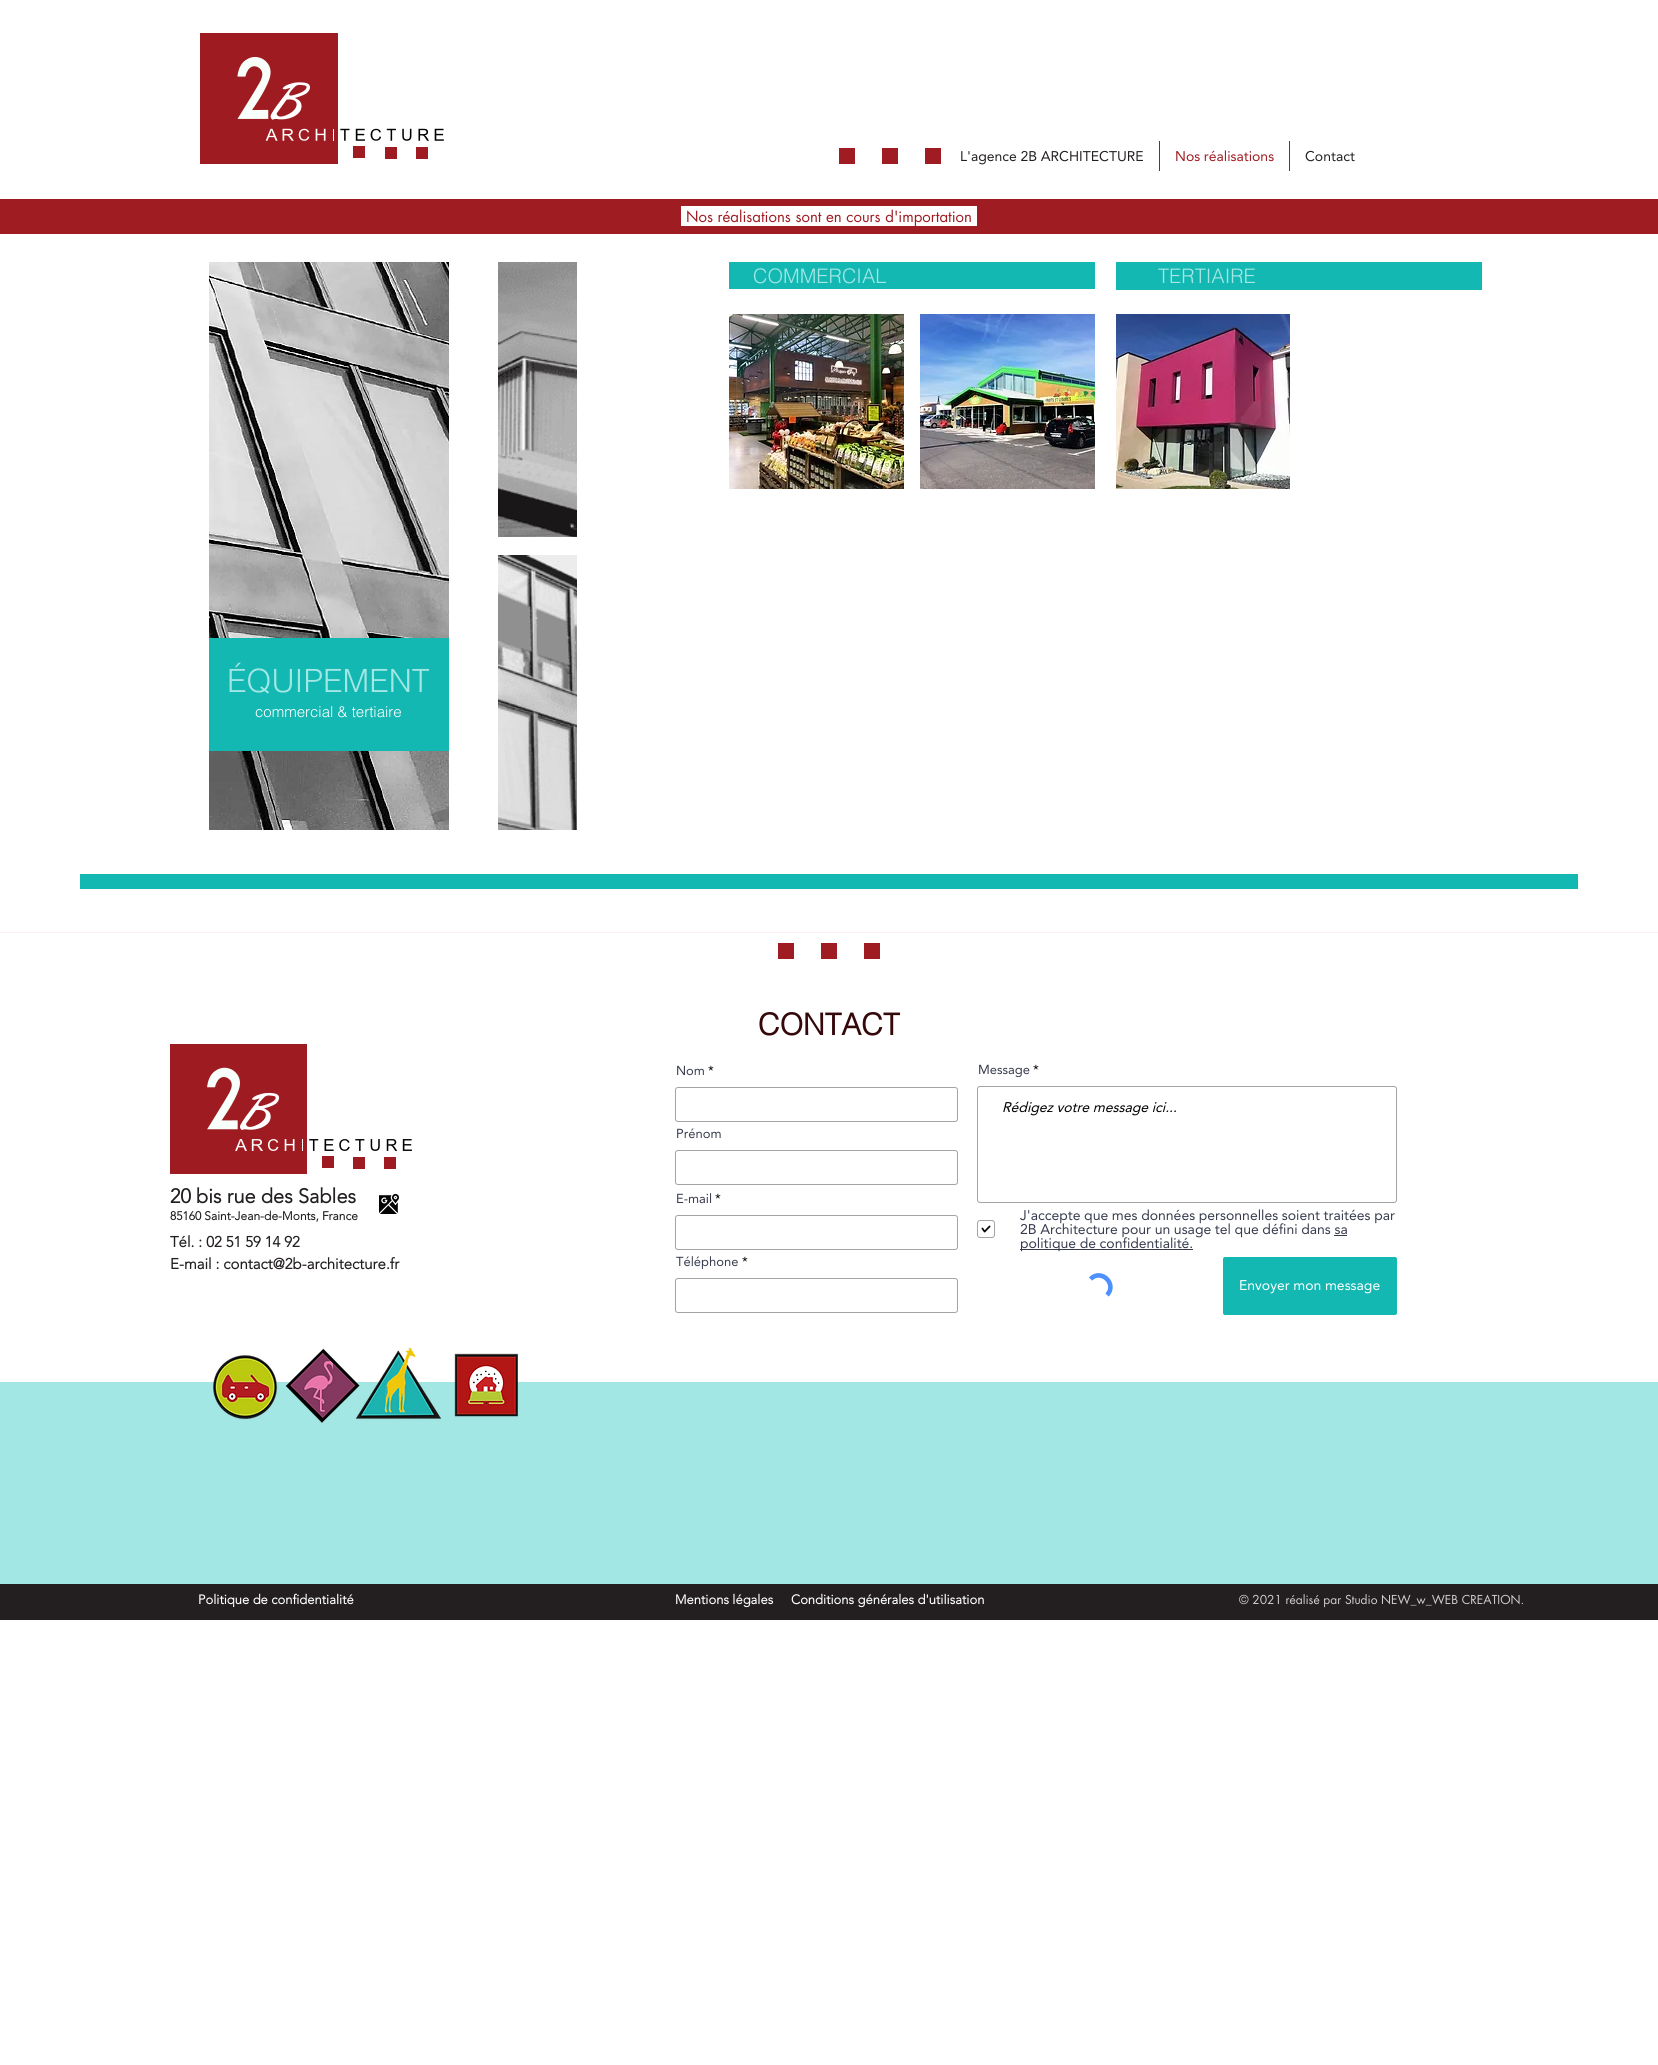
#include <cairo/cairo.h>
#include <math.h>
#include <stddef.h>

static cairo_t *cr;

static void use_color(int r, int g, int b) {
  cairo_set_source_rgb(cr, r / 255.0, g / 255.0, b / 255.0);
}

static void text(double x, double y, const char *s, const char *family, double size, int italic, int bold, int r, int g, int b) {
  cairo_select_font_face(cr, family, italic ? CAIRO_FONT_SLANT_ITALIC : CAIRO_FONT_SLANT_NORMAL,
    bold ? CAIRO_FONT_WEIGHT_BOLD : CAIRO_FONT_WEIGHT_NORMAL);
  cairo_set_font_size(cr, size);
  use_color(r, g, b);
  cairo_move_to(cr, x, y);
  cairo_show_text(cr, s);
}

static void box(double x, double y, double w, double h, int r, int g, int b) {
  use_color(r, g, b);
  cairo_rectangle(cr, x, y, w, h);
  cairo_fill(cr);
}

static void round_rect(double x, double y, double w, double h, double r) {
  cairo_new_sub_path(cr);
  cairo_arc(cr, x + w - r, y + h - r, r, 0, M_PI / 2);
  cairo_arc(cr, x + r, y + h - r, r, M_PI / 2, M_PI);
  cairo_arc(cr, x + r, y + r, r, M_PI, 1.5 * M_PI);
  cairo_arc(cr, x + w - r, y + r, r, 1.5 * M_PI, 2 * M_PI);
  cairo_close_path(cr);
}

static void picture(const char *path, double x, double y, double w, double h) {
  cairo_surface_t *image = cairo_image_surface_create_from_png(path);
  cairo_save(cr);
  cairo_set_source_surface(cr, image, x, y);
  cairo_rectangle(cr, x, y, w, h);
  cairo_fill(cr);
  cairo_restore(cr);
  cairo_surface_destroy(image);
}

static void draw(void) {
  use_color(255, 255, 255);
  cairo_paint(cr);
  picture("img_01.png", 200, 33, 244, 131);
  box(839, 148, 16, 16, 159, 28, 34);
  box(882, 148, 16, 16, 159, 28, 34);
  box(925, 148, 16, 16, 159, 28, 34);
  box(1159, 141, 1, 30, 159, 28, 34);
  box(1289, 141, 1, 30, 159, 28, 34);
  box(0, 199, 1658, 35, 159, 28, 34);
  box(681, 206, 296, 20, 255, 255, 255);
  picture("img_02.png", 498, 262, 79, 275);
  picture("img_03.png", 498, 555, 79, 275);
  box(729, 262, 366, 27, 20, 184, 178);
  box(1116, 262, 366, 28, 20, 184, 178);
  picture("img_04.png", 729, 314, 175, 175);
  picture("img_05.png", 920, 314, 175, 175);
  picture("img_06.png", 1116, 314, 174, 175);
  picture("img_07.png", 209, 262, 240, 568);
  box(209, 638, 240, 113, 20, 184, 178);
  box(80, 874, 1498, 15, 20, 184, 178);
  box(0, 932, 1658, 1, 250, 241, 242);
  box(778, 943, 16, 16, 159, 28, 34);
  box(821, 943, 16, 16, 159, 28, 34);
  box(864, 943, 16, 16, 159, 28, 34);
  picture("img_08.png", 170, 1044, 242, 130);
  picture("img_09.png", 379, 1194, 20, 20);
  round_rect(675.5, 1087.5, 282, 34, 2.5);
  use_color(167, 162, 163);
  cairo_set_line_width(cr, 1);
  cairo_stroke(cr);
  round_rect(977.5, 1086.5, 419, 116, 2.5);
  cairo_stroke(cr);
  round_rect(675.5, 1150.5, 282, 34, 2.5);
  cairo_stroke(cr);
  round_rect(675.5, 1215.5, 282, 34, 2.5);
  cairo_stroke(cr);
  round_rect(977.5, 1220.5, 17, 17, 2.5);
  cairo_stroke(cr);
  box(1334, 1235, 13, 1, 55, 59, 77);
  box(1020, 1249, 173, 1, 55, 59, 77);
  picture("img_10.png", 981, 1225, 10, 8);
  round_rect(675.5, 1278.5, 282, 34, 2.5);
  use_color(167, 162, 163);
  cairo_stroke(cr);
  cairo_new_path(cr);
  cairo_move_to(cr, 1090.5, 1279);
  cairo_curve_to(cr, 1101.5, 1268, 1117.5, 1284.5, 1107, 1295);
  use_color(77, 144, 254);
  cairo_set_line_width(cr, 4.6);
  cairo_stroke(cr);
  use_color(20, 184, 178);
  round_rect(1223, 1257, 174, 58, 2);
  cairo_fill(cr);
  box(0, 1382, 1658, 202, 163, 231, 229);
  picture("img_11.png", 213, 1347, 305, 76);
  box(0, 1584, 1658, 36, 35, 31, 32);
  text(960, 161, "L'agence 2B ARCHITECTURE", "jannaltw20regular", 14, 0, 0, 35, 31, 32);
  text(1175, 161, "Nos réalisations", "jannaltw20regular", 14, 0, 0, 159, 28, 34);
  text(1305, 161, "Contact", "jannaltw20regular", 14, 0, 0, 35, 31, 32);
  text(686, 222, "Nos réalisations sont en cours d'importation", "futura", 15, 0, 0, 159, 28, 34);
  text(753, 283, "COMMERCIAL", "helvetica Light", 20, 0, 0, 163, 231, 229);
  text(1158, 283, "TERTIAIRE", "helvetica Light", 20, 0, 0, 163, 231, 229);
  text(227, 692, "ÉQUIPEMENT", "helvetica Light", 32, 0, 0, 163, 231, 229);
  text(255, 717, "commercial & tertiaire", "helvetica Light", 15, 0, 0, 255, 255, 255);
  text(758, 1035, "CONTACT", "helvetica", 30, 0, 1, 53, 9, 11);
  text(170, 1203, "20 bis rue des Sables", "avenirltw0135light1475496", 20, 0, 1, 35, 31, 32);
  text(170, 1220, "85160 Saint-Jean-de-Monts, France", "avenirltw0135light1475496", 12, 0, 1, 35, 31, 32);
  text(170, 1247, "Tél. : 02 51 59 14 92", "avenirltw0135light1475496", 15, 0, 1, 35, 31, 32);
  text(170, 1269, "E-mail : contact@2b-architecture.fr", "avenirltw0135light1475496", 15, 0, 1, 35, 31, 32);
  text(676, 1075, "Nom", "jannaltw20regular", 13, 0, 0, 55, 59, 77);
  text(708, 1075, "*", "jannaltw20regular", 13, 0, 0, 0, 0, 0);
  text(978, 1074, "Message", "jannaltw20regular", 13, 0, 0, 55, 59, 77);
  text(1033, 1074, "*", "jannaltw20regular", 13, 0, 0, 0, 0, 0);
  text(1002, 1112, "Rédigez votre message ici...", "jannaltw20regular", 14, 1, 0, 0, 0, 0);
  text(676, 1138, "Prénom", "jannaltw20regular", 13, 0, 0, 55, 59, 77);
  text(676, 1203, "E-mail", "jannaltw20regular", 13, 0, 0, 55, 59, 77);
  text(715, 1203, "*", "jannaltw20regular", 13, 0, 0, 0, 0, 0);
  text(1020, 1220, "J'accepte que mes données personnelles soient traitées par", "jannaltw20regular", 14, 0, 0, 55, 59, 77);
  text(1020, 1234, "2B Architecture pour un usage tel que défini dans sa", "jannaltw20regular", 14, 0, 0, 55, 59, 77);
  text(1020, 1248, "politique de confidentialité.", "jannaltw20regular", 14, 0, 0, 55, 59, 77);
  text(676, 1266, "Téléphone", "jannaltw20regular", 13, 0, 0, 55, 59, 77);
  text(742, 1266, "*", "jannaltw20regular", 13, 0, 0, 0, 0, 0);
  text(1239, 1290, "Envoyer mon message", "jannaltw20regular", 14, 0, 0, 255, 255, 255);
  text(198, 1604, "Politique de confidentialité", "avenirltw0135light1475496", 13, 0, 1, 255, 255, 255);
  text(675, 1604, "Mentions légales", "avenirltw0135light1475496", 13, 0, 1, 255, 255, 255);
  text(791, 1604, "Conditions générales d'utilisation", "avenirltw0135light1475496", 13, 0, 1, 255, 255, 255);
  text(1239, 1604, "© 2021 réalisé par Studio NEW_w_WEB CREATION.", "futura", 12, 0, 0, 211, 206, 207);
}

int main(void) {
  cairo_surface_t *surface = cairo_image_surface_create(CAIRO_FORMAT_RGB24, 1658, 2065);
  cr = cairo_create(surface);
  cairo_font_options_t *options = cairo_font_options_create();
  cairo_font_options_set_hint_metrics(options, CAIRO_HINT_METRICS_OFF);
  cairo_font_options_set_hint_style(options, CAIRO_HINT_STYLE_NONE);
  cairo_set_font_options(cr, options);
  cairo_set_miter_limit(cr, 4);
  draw();
  cairo_surface_write_to_png(surface, "out.png");
  cairo_font_options_destroy(options);
  cairo_destroy(cr);
  cairo_surface_destroy(surface);
  return 0;
}
